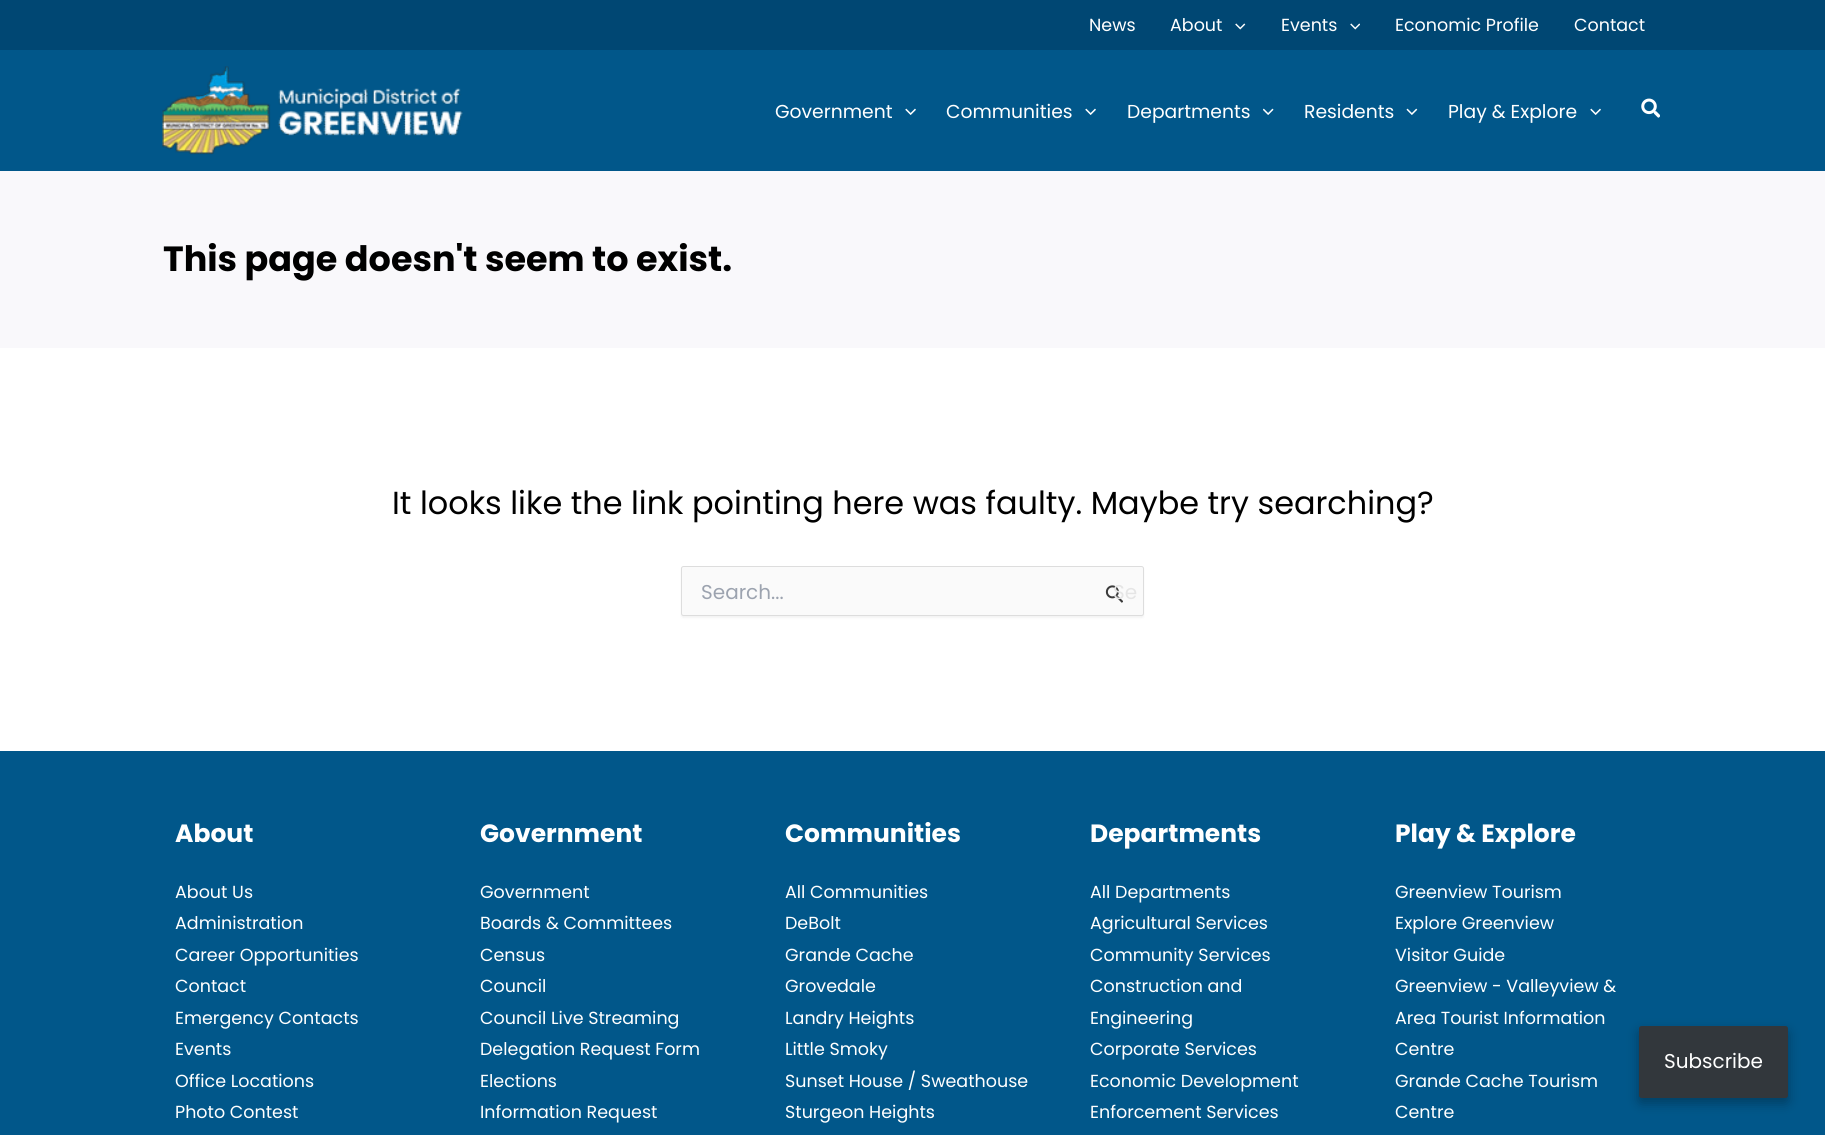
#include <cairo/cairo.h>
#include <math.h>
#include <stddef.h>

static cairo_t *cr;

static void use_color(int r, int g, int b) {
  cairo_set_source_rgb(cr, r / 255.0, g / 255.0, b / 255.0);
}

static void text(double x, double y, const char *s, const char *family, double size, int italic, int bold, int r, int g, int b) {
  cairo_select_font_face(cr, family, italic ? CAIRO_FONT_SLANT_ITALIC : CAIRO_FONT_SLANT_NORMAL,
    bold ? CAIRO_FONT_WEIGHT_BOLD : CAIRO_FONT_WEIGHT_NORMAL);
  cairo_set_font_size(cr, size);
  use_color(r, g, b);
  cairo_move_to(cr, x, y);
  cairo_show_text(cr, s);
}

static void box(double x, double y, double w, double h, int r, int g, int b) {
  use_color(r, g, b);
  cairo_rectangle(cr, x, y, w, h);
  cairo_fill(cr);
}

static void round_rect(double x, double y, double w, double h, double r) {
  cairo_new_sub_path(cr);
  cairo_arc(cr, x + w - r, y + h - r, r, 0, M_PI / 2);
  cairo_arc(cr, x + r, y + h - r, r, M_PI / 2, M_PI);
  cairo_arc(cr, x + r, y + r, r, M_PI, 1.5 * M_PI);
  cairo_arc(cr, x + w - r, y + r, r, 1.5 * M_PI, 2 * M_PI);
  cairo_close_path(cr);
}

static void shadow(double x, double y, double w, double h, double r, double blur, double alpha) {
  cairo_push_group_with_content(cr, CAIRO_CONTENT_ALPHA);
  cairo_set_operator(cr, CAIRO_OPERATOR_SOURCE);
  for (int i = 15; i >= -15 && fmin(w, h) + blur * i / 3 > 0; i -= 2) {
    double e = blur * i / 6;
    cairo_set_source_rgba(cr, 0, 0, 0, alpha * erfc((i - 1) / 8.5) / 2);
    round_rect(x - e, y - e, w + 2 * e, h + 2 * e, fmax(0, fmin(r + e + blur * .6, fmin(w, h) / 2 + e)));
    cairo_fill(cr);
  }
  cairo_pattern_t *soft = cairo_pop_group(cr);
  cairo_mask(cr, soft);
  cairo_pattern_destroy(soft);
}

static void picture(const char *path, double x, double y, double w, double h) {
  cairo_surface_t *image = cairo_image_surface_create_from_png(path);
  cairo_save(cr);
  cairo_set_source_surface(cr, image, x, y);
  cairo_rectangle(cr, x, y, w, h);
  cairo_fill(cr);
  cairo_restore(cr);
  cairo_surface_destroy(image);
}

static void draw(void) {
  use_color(255, 255, 255);
  cairo_paint(cr);
  box(0, 0, 1825, 50, 0, 71, 115);
  picture("img_01.png", 1235, 23, 11, 7);
  picture("img_02.png", 1350, 23, 10, 7);
  box(0, 50, 1825, 121, 1, 87, 138);
  picture("img_03.png", 162, 66, 301, 89);
  picture("img_04.png", 905, 108, 11, 7);
  picture("img_04.png", 1085, 108, 11, 7);
  picture("img_05.png", 1263, 108, 11, 7);
  picture("img_06.png", 1406, 108, 12, 7);
  picture("img_04.png", 1590, 108, 11, 7);
  picture("img_07.png", 1641, 98, 19, 20);
  box(0, 171, 1825, 177, 249, 248, 251);
  use_color(0, 0, 0);
  shadow(681, 568, 463, 50, 2.5, 1, 0.05);
  use_color(250, 250, 250);
  round_rect(681.5, 566.5, 462, 49, 2);
  cairo_fill_preserve(cr);
  use_color(221, 221, 221);
  cairo_set_line_width(cr, 1);
  cairo_stroke(cr);
  picture("img_08.png", 1105, 585, 18, 18);
  box(0, 751, 1825, 384, 1, 87, 138);
  use_color(0, 0, 0);
  shadow(1639, 1031, 149, 72, 2.5, 6, 0.3);
  use_color(50, 55, 60);
  round_rect(1639, 1026, 149, 72, 2.5);
  cairo_fill(cr);
  text(1089, 31, "News", "Poppins", 17.5, 0, 0, 255, 255, 255);
  text(1170, 31, "About", "Poppins", 17.5, 0, 0, 255, 255, 255);
  text(1281, 31, "Events", "Poppins", 17.5, 0, 0, 255, 255, 255);
  text(1395, 31, "Economic Profile", "Poppins", 17.5, 0, 0, 255, 255, 255);
  text(1574, 31, "Contact", "Poppins", 17.5, 0, 0, 255, 255, 255);
  text(775, 118, "Government", "Poppins", 18.75, 0, 0, 255, 255, 255);
  text(946, 118, "Communities", "Poppins", 18.75, 0, 0, 255, 255, 255);
  text(1127, 118, "Departments", "Poppins", 18.75, 0, 0, 255, 255, 255);
  text(1304, 118, "Residents", "Poppins", 18.75, 0, 0, 255, 255, 255);
  text(1448, 118, "Play & Explore", "Poppins", 18.75, 0, 0, 255, 255, 255);
  text(163, 271, "This page doesn't seem to exist.", "Poppins", 35, 0, 1, 0, 0, 0);
  text(392, 514, "It looks like the link pointing here was faulty. Maybe try searching?", "Poppins", 31.9, 0, 0, 0, 0, 0);
  text(701, 599, "Search...", "Poppins", 20, 0, 0, 156, 163, 175);
  text(1113, 599, "Se", "Poppins", 20, 0, 0, 229, 229, 229);
  text(175, 842, "About", "Poppins", 25, 0, 1, 255, 255, 255);
  text(175, 898, "About Us", "Poppins", 17.5, 0, 0, 255, 255, 255);
  text(175, 929, "Administration", "Poppins", 17.5, 0, 0, 255, 255, 255);
  text(175, 961, "Career Opportunities", "Poppins", 17.5, 0, 0, 255, 255, 255);
  text(175, 992, "Contact", "Poppins", 17.5, 0, 0, 255, 255, 255);
  text(175, 1024, "Emergency Contacts", "Poppins", 17.5, 0, 0, 255, 255, 255);
  text(175, 1055, "Events", "Poppins", 17.5, 0, 0, 255, 255, 255);
  text(175, 1087, "Office Locations", "Poppins", 17.5, 0, 0, 255, 255, 255);
  text(175, 1118, "Photo Contest", "Poppins", 17.5, 0, 0, 255, 255, 255);
  text(480, 842, "Government", "Poppins", 25, 0, 1, 255, 255, 255);
  text(480, 898, "Government", "Poppins", 17.5, 0, 0, 255, 255, 255);
  text(480, 929, "Boards & Committees", "Poppins", 17.5, 0, 0, 255, 255, 255);
  text(480, 961, "Census", "Poppins", 17.5, 0, 0, 255, 255, 255);
  text(480, 992, "Council", "Poppins", 17.5, 0, 0, 255, 255, 255);
  text(480, 1024, "Council Live Streaming", "Poppins", 17.5, 0, 0, 255, 255, 255);
  text(480, 1055, "Delegation Request Form", "Poppins", 17.5, 0, 0, 255, 255, 255);
  text(480, 1087, "Elections", "Poppins", 17.5, 0, 0, 255, 255, 255);
  text(480, 1118, "Information Request", "Poppins", 17.5, 0, 0, 255, 255, 255);
  text(785, 842, "Communities", "Poppins", 25, 0, 1, 255, 255, 255);
  text(785, 898, "All Communities", "Poppins", 17.5, 0, 0, 255, 255, 255);
  text(785, 929, "DeBolt", "Poppins", 17.5, 0, 0, 255, 255, 255);
  text(785, 961, "Grande Cache", "Poppins", 17.5, 0, 0, 255, 255, 255);
  text(785, 992, "Grovedale", "Poppins", 17.5, 0, 0, 255, 255, 255);
  text(785, 1024, "Landry Heights", "Poppins", 17.5, 0, 0, 255, 255, 255);
  text(785, 1055, "Little Smoky", "Poppins", 17.5, 0, 0, 255, 255, 255);
  text(785, 1087, "Sunset House / Sweathouse", "Poppins", 17.5, 0, 0, 255, 255, 255);
  text(785, 1118, "Sturgeon Heights", "Poppins", 17.5, 0, 0, 255, 255, 255);
  text(1090, 842, "Departments", "Poppins", 25, 0, 1, 255, 255, 255);
  text(1090, 898, "All Departments", "Poppins", 17.5, 0, 0, 255, 255, 255);
  text(1090, 929, "Agricultural Services", "Poppins", 17.5, 0, 0, 255, 255, 255);
  text(1090, 961, "Community Services", "Poppins", 17.5, 0, 0, 255, 255, 255);
  text(1090, 992, "Construction and", "Poppins", 17.5, 0, 0, 255, 255, 255);
  text(1090, 1024, "Engineering", "Poppins", 17.5, 0, 0, 255, 255, 255);
  text(1090, 1055, "Corporate Services", "Poppins", 17.5, 0, 0, 255, 255, 255);
  text(1090, 1087, "Economic Development", "Poppins", 17.5, 0, 0, 255, 255, 255);
  text(1090, 1118, "Enforcement Services", "Poppins", 17.5, 0, 0, 255, 255, 255);
  text(1395, 842, "Play & Explore", "Poppins", 25, 0, 1, 255, 255, 255);
  text(1395, 898, "Greenview Tourism", "Poppins", 17.5, 0, 0, 255, 255, 255);
  text(1395, 929, "Explore Greenview", "Poppins", 17.5, 0, 0, 255, 255, 255);
  text(1395, 961, "Visitor Guide", "Poppins", 17.5, 0, 0, 255, 255, 255);
  text(1395, 992, "Greenview - Valleyview &", "Poppins", 17.5, 0, 0, 255, 255, 255);
  text(1395, 1024, "Area Tourist Information", "Poppins", 17.5, 0, 0, 255, 255, 255);
  text(1395, 1055, "Centre", "Poppins", 17.5, 0, 0, 255, 255, 255);
  text(1395, 1087, "Grande Cache Tourism", "Poppins", 17.5, 0, 0, 255, 255, 255);
  text(1395, 1118, "Centre", "Poppins", 17.5, 0, 0, 255, 255, 255);
  text(1664, 1068, "Subscribe", "Poppins", 20, 0, 0, 255, 255, 255);
}

int main(void) {
  cairo_surface_t *surface = cairo_image_surface_create(CAIRO_FORMAT_RGB24, 1825, 1135);
  cr = cairo_create(surface);
  cairo_font_options_t *options = cairo_font_options_create();
  cairo_font_options_set_hint_metrics(options, CAIRO_HINT_METRICS_OFF);
  cairo_font_options_set_hint_style(options, CAIRO_HINT_STYLE_NONE);
  cairo_set_font_options(cr, options);
  cairo_set_miter_limit(cr, 4);
  draw();
  cairo_surface_write_to_png(surface, "out.png");
  cairo_font_options_destroy(options);
  cairo_destroy(cr);
  cairo_surface_destroy(surface);
  return 0;
}
